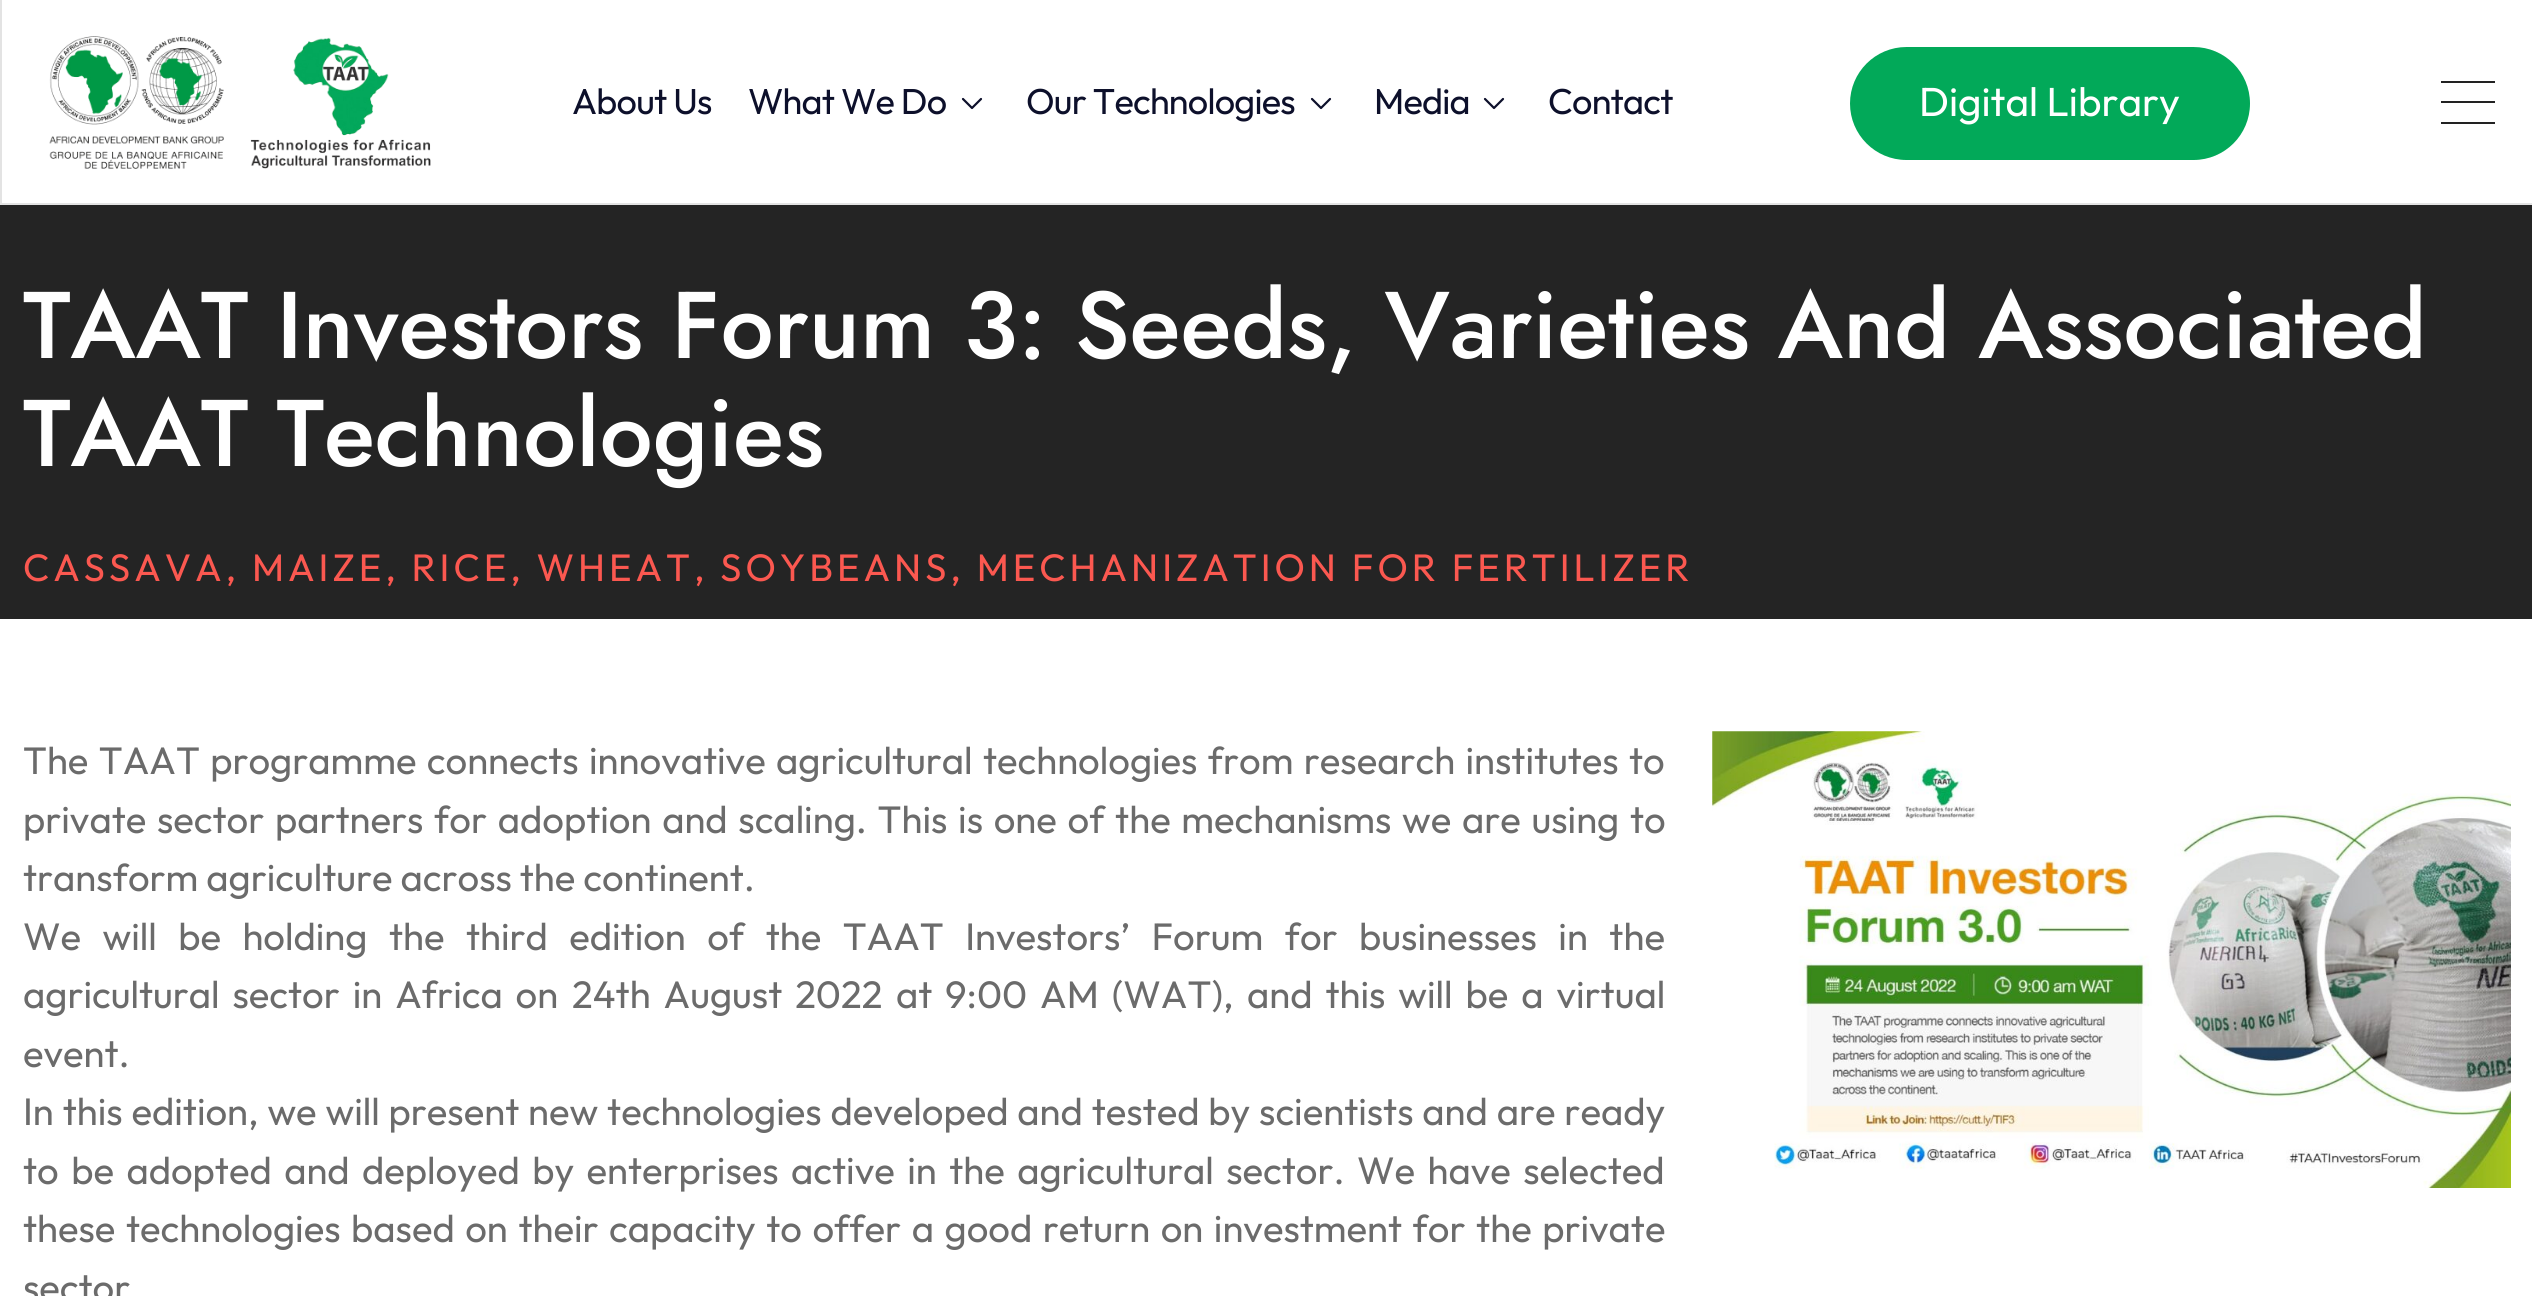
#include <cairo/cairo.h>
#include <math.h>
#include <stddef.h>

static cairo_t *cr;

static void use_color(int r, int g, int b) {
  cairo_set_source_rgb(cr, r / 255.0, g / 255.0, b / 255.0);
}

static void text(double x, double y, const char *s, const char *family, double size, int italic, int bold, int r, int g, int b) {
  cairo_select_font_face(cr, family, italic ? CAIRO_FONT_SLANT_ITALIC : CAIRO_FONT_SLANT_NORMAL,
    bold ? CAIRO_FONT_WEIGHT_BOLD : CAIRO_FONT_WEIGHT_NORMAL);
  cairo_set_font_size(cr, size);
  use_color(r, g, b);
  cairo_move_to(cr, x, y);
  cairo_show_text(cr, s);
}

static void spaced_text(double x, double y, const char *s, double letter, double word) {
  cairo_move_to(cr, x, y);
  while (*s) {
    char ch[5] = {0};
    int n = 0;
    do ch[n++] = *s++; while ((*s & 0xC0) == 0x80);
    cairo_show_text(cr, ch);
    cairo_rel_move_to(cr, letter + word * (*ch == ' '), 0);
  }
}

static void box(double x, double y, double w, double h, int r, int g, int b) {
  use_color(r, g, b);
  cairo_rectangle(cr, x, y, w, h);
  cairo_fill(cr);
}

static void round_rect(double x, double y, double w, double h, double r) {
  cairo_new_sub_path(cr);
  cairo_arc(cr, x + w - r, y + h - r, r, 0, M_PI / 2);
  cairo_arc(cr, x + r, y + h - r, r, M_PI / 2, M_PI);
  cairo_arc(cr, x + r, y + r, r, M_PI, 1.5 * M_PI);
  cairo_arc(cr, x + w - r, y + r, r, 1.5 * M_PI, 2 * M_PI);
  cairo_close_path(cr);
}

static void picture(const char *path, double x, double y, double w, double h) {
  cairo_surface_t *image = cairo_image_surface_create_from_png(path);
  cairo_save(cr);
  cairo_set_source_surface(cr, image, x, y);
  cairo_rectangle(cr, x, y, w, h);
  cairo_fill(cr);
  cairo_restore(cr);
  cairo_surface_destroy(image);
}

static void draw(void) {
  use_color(255, 255, 255);
  cairo_paint(cr);
  cairo_rectangle(cr, 1, -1, 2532, 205);
  use_color(227, 227, 227);
  cairo_stroke(cr);
  picture("img_01.png", 49, 36, 382, 133);
  cairo_new_path(cr);
  cairo_move_to(cr, 963, 99);
  cairo_line_to(cr, 972, 108);
  cairo_line_to(cr, 981, 99);
  use_color(13, 16, 43);
  cairo_set_line_width(cr, 2.2);
  cairo_set_line_cap(cr, CAIRO_LINE_CAP_ROUND);
  cairo_set_line_join(cr, CAIRO_LINE_JOIN_ROUND);
  cairo_stroke(cr);
  cairo_new_path(cr);
  cairo_move_to(cr, 1312, 99);
  cairo_line_to(cr, 1321, 108);
  cairo_line_to(cr, 1330, 99);
  cairo_stroke(cr);
  cairo_new_path(cr);
  cairo_move_to(cr, 1485, 99);
  cairo_line_to(cr, 1494, 108);
  cairo_line_to(cr, 1503, 99);
  cairo_stroke(cr);
  use_color(2, 169, 89);
  round_rect(1850, 47, 400, 113, 56.5);
  cairo_fill(cr);
  box(2441, 81, 54, 2, 34, 34, 34);
  box(2441, 101, 54, 2, 34, 34, 34);
  box(2441, 122, 54, 2, 34, 34, 34);
  box(0, 205, 2532, 414, 36, 36, 36);
  picture("img_02.png", 1712, 731, 799, 457);
  cairo_select_font_face(cr, "Outfit Thin", CAIRO_FONT_SLANT_NORMAL, CAIRO_FONT_WEIGHT_NORMAL);
  cairo_set_font_size(cr, 36);
  use_color(13, 16, 43);
  spaced_text(572, 114, "About Us", -0.75, 0);
  spaced_text(748, 114, "What We Do", -0.75, 0);
  spaced_text(1026, 114, "Our Technologies", -0.75, 0);
  spaced_text(1374, 114, "Media", -0.75, 0);
  spaced_text(1548, 114, "Contact", -0.75, 0);
  text(1919, 116, "Digital Library", "Outfit Thin", 40.5, 0, 0, 255, 255, 255);
  cairo_select_font_face(cr, "Jost Medium", CAIRO_FONT_SLANT_NORMAL, CAIRO_FONT_WEIGHT_NORMAL);
  cairo_set_font_size(cr, 94.5);
  spaced_text(23, 358, "TAAT Investors Forum 3: Seeds, Varieties And Associated", -0.1, 0);
  spaced_text(23, 466, "TAAT Technologies", -0.1, 0);
  cairo_select_font_face(cr, "Outfit Thin", CAIRO_FONT_SLANT_NORMAL, CAIRO_FONT_WEIGHT_NORMAL);
  cairo_set_font_size(cr, 38.25);
  use_color(251, 88, 80);
  spaced_text(23, 581, "CASSAVA, MAIZE, RICE, WHEAT, SOYBEANS, MECHANIZATION FOR FERTILIZER", 3.95, 0);
  use_color(107, 107, 107);
  spaced_text(23, 774, "The TAAT programme connects innovative agricultural technologies from research institutes to", 0, 2.4);
  spaced_text(23, 833, "private sector partners for adoption and scaling. This is one of the mechanisms we are using to", 0, 2.75);
  text(23, 891, "transform agriculture across the continent.", "Outfit Thin", 38.25, 0, 0, 107, 107, 107);
  spaced_text(23, 950, "We will be holding the third edition of the TAAT Investors’ Forum for businesses in the", 0, 13.5);
  spaced_text(23, 1008, "agricultural sector in Africa on", 0, 5);
  spaced_text(572, 1008, "24th August 2022", 0, 5);
  text(896, 1008, "at", "Outfit Thin", 38.25, 0, 0, 107, 107, 107);
  spaced_text(945, 1008, "9:00 AM (WAT),", 0, 5);
  spaced_text(1247, 1008, "and this will be a virtual", 0, 5);
  text(23, 1067, "event.", "Outfit Thin", 38.25, 0, 0, 107, 107, 107);
  spaced_text(23, 1125, "In this edition, we will present new technologies developed and tested by scientists and are ready", 0, 0.9);
  spaced_text(23, 1184, "to be adopted and deployed by enterprises active in the agricultural sector. We have selected", 0, 4.5);
  spaced_text(23, 1242, "these technologies based on their capacity to offer a good return on investment for the private", 0, 2.6);
  text(23, 1301, "sector", "Outfit Thin", 38.25, 0, 0, 107, 107, 107);
}

int main(void) {
  cairo_surface_t *surface = cairo_image_surface_create(CAIRO_FORMAT_RGB24, 2532, 1296);
  cr = cairo_create(surface);
  cairo_font_options_t *options = cairo_font_options_create();
  cairo_font_options_set_hint_metrics(options, CAIRO_HINT_METRICS_OFF);
  cairo_font_options_set_hint_style(options, CAIRO_HINT_STYLE_NONE);
  cairo_set_font_options(cr, options);
  cairo_set_miter_limit(cr, 4);
  draw();
  cairo_surface_write_to_png(surface, "out.png");
  cairo_font_options_destroy(options);
  cairo_destroy(cr);
  cairo_surface_destroy(surface);
  return 0;
}
